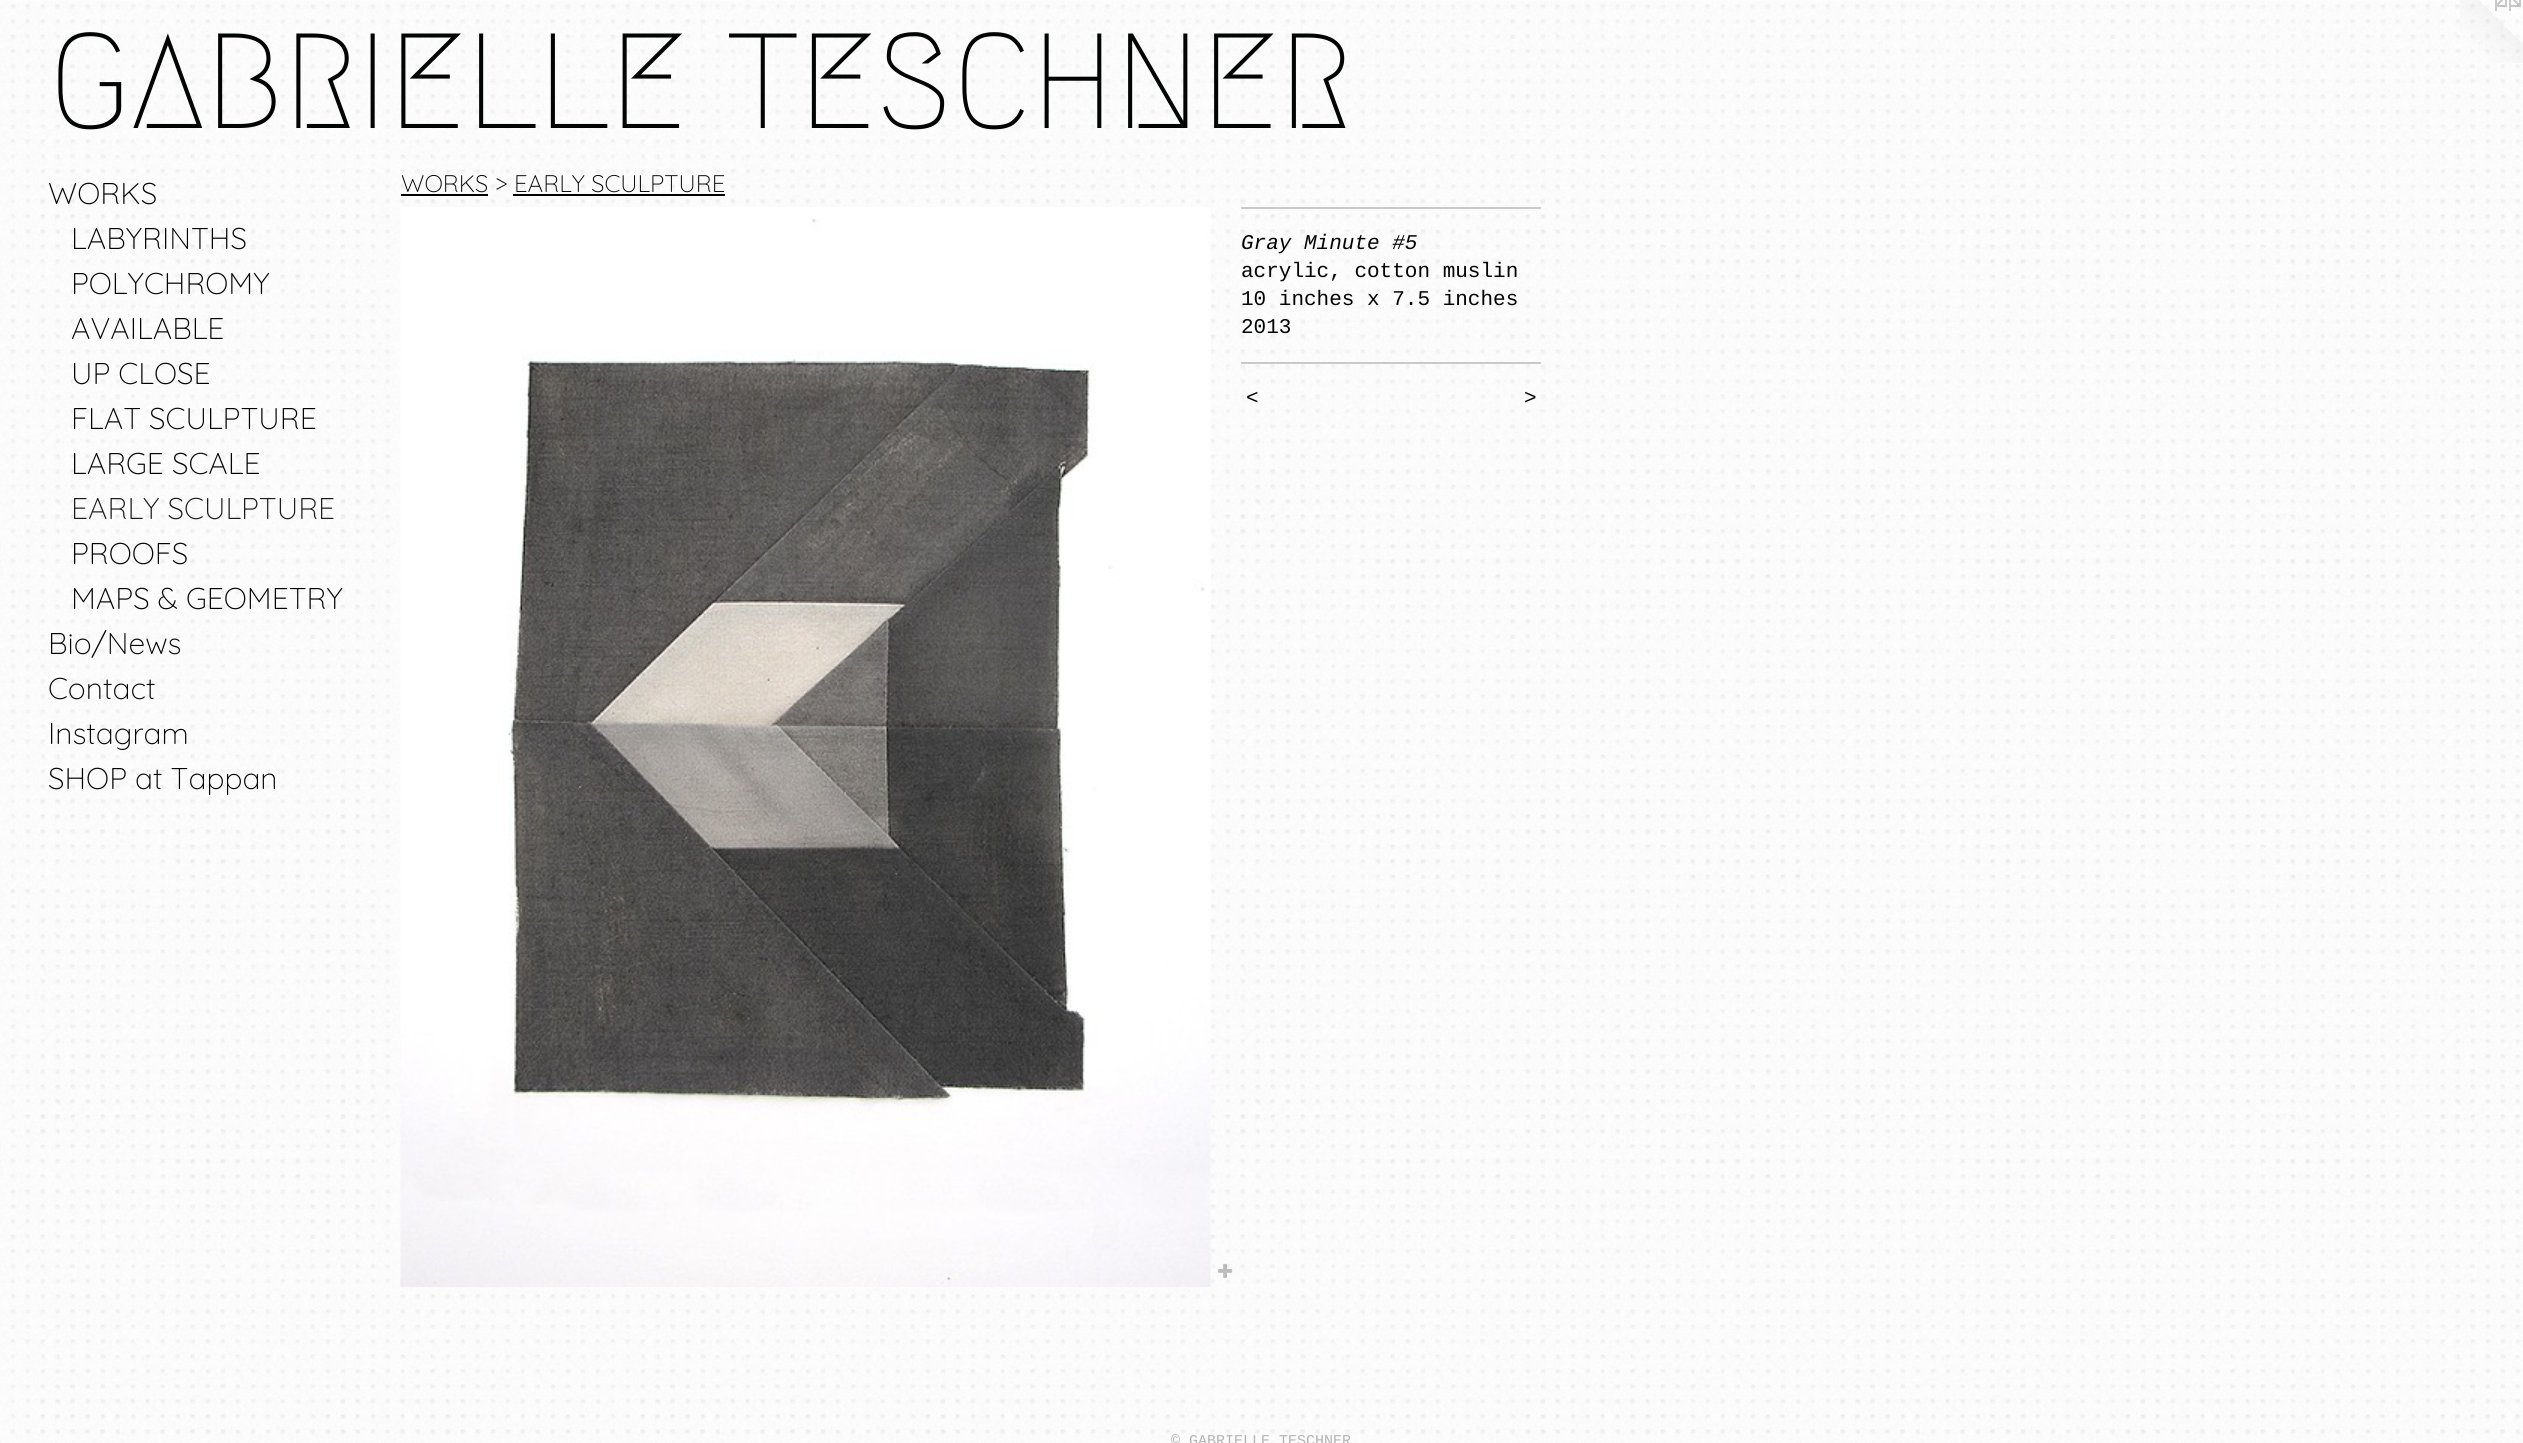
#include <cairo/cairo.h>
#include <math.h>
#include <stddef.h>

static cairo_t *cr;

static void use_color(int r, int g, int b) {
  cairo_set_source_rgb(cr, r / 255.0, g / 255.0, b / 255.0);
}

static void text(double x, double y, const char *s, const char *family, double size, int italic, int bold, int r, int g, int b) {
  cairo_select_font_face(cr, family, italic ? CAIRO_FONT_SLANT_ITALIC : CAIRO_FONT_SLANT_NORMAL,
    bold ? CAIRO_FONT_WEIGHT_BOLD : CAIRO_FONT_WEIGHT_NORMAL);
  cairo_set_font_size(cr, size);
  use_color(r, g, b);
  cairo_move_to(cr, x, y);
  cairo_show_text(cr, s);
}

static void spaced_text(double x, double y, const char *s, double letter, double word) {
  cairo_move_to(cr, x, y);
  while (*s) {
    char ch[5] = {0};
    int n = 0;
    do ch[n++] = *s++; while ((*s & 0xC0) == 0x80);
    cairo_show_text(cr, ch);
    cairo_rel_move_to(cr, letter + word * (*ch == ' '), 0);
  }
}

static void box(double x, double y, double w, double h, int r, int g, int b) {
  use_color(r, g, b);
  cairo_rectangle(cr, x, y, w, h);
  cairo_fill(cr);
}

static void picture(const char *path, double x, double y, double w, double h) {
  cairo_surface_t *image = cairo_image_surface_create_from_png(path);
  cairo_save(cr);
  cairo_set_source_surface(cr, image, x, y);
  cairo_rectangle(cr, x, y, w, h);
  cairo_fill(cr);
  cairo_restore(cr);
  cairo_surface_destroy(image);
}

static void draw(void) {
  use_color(253, 253, 253);
  cairo_paint(cr);
  picture("img_01.png", 0, 1, 2523, 1442);
  picture("img_02.png", 2460, 0, 63, 63);
  box(401, 194, 87, 2, 0, 0, 0);
  box(513, 194, 212, 2, 0, 0, 0);
  picture("img_03.png", 400, 207, 811, 1080);
  picture("img_04.png", 1218, 1263, 15, 15);
  cairo_set_source_rgba(cr, 0, 0, 0, 0.2);
  cairo_rectangle(cr, 1241, 207, 300, 2);
  cairo_fill(cr);
  cairo_rectangle(cr, 1241, 362, 300, 2);
  cairo_fill(cr);
  text(48, 128, "GABRIELLE TESCHNER", "Megrim Medium", 135, 0, 0, 2, 3, 3);
  text(48, 204, "WORKS", "Quicksand Light", 30, 0, 0, 2, 3, 3);
  text(71, 249, "LABYRINTHS", "Quicksand Light", 30, 0, 0, 2, 3, 3);
  text(71, 294, "POLYCHROMY", "Quicksand Light", 30, 0, 0, 2, 3, 3);
  text(71, 339, "AVAILABLE", "Quicksand Light", 30, 0, 0, 2, 3, 3);
  text(71, 384, "UP CLOSE", "Quicksand Light", 30, 0, 0, 2, 3, 3);
  text(71, 429, "FLAT SCULPTURE", "Quicksand Light", 30, 0, 0, 2, 3, 3);
  text(71, 474, "LARGE SCALE", "Quicksand Light", 30, 0, 0, 2, 3, 3);
  text(71, 519, "EARLY SCULPTURE", "Quicksand Light", 30, 0, 0, 26, 26, 26);
  text(71, 564, "PROOFS", "Quicksand Light", 30, 0, 0, 2, 3, 3);
  text(71, 609, "MAPS & GEOMETRY", "Quicksand Light", 30, 0, 0, 2, 3, 3);
  text(48, 654, "Bio/News", "Quicksand Light", 30, 0, 0, 2, 3, 3);
  text(48, 699, "Contact", "Quicksand Light", 30, 0, 0, 2, 3, 3);
  text(48, 744, "Instagram", "Quicksand Light", 30, 0, 0, 2, 3, 3);
  text(48, 789, "SHOP at Tappan", "Quicksand Light", 30, 0, 0, 2, 3, 3);
  text(401, 192, "WORKS > EARLY SCULPTURE", "Quicksand Light", 24, 0, 0, 2, 3, 3);
  text(1241, 249, "Gray Minute #5", "Liberation Mono", 21, 1, 0, 2, 3, 3);
  text(1241, 277, "acrylic, cotton muslin", "Liberation Mono", 21, 0, 0, 2, 3, 3);
  text(1241, 305, "10 inches x 7.5 inches", "Liberation Mono", 21, 0, 0, 2, 3, 3);
  text(1241, 333, "2013", "Liberation Mono", 21, 0, 0, 2, 3, 3);
  cairo_select_font_face(cr, "Liberation Mono", CAIRO_FONT_SLANT_ITALIC, CAIRO_FONT_WEIGHT_NORMAL);
  spaced_text(1246, 404, "<", 2, 0);
  spaced_text(1524, 404, ">", 2, 0);
  text(1171, 1445, "© GABRIELLE TESCHNER", "Liberation Mono", 15, 0, 0, 179, 179, 179);
}

int main(void) {
  cairo_surface_t *surface = cairo_image_surface_create(CAIRO_FORMAT_RGB24, 2523, 1443);
  cr = cairo_create(surface);
  cairo_font_options_t *options = cairo_font_options_create();
  cairo_font_options_set_hint_metrics(options, CAIRO_HINT_METRICS_OFF);
  cairo_font_options_set_hint_style(options, CAIRO_HINT_STYLE_NONE);
  cairo_set_font_options(cr, options);
  cairo_set_miter_limit(cr, 4);
  draw();
  cairo_surface_write_to_png(surface, "out.png");
  cairo_font_options_destroy(options);
  cairo_destroy(cr);
  cairo_surface_destroy(surface);
  return 0;
}
